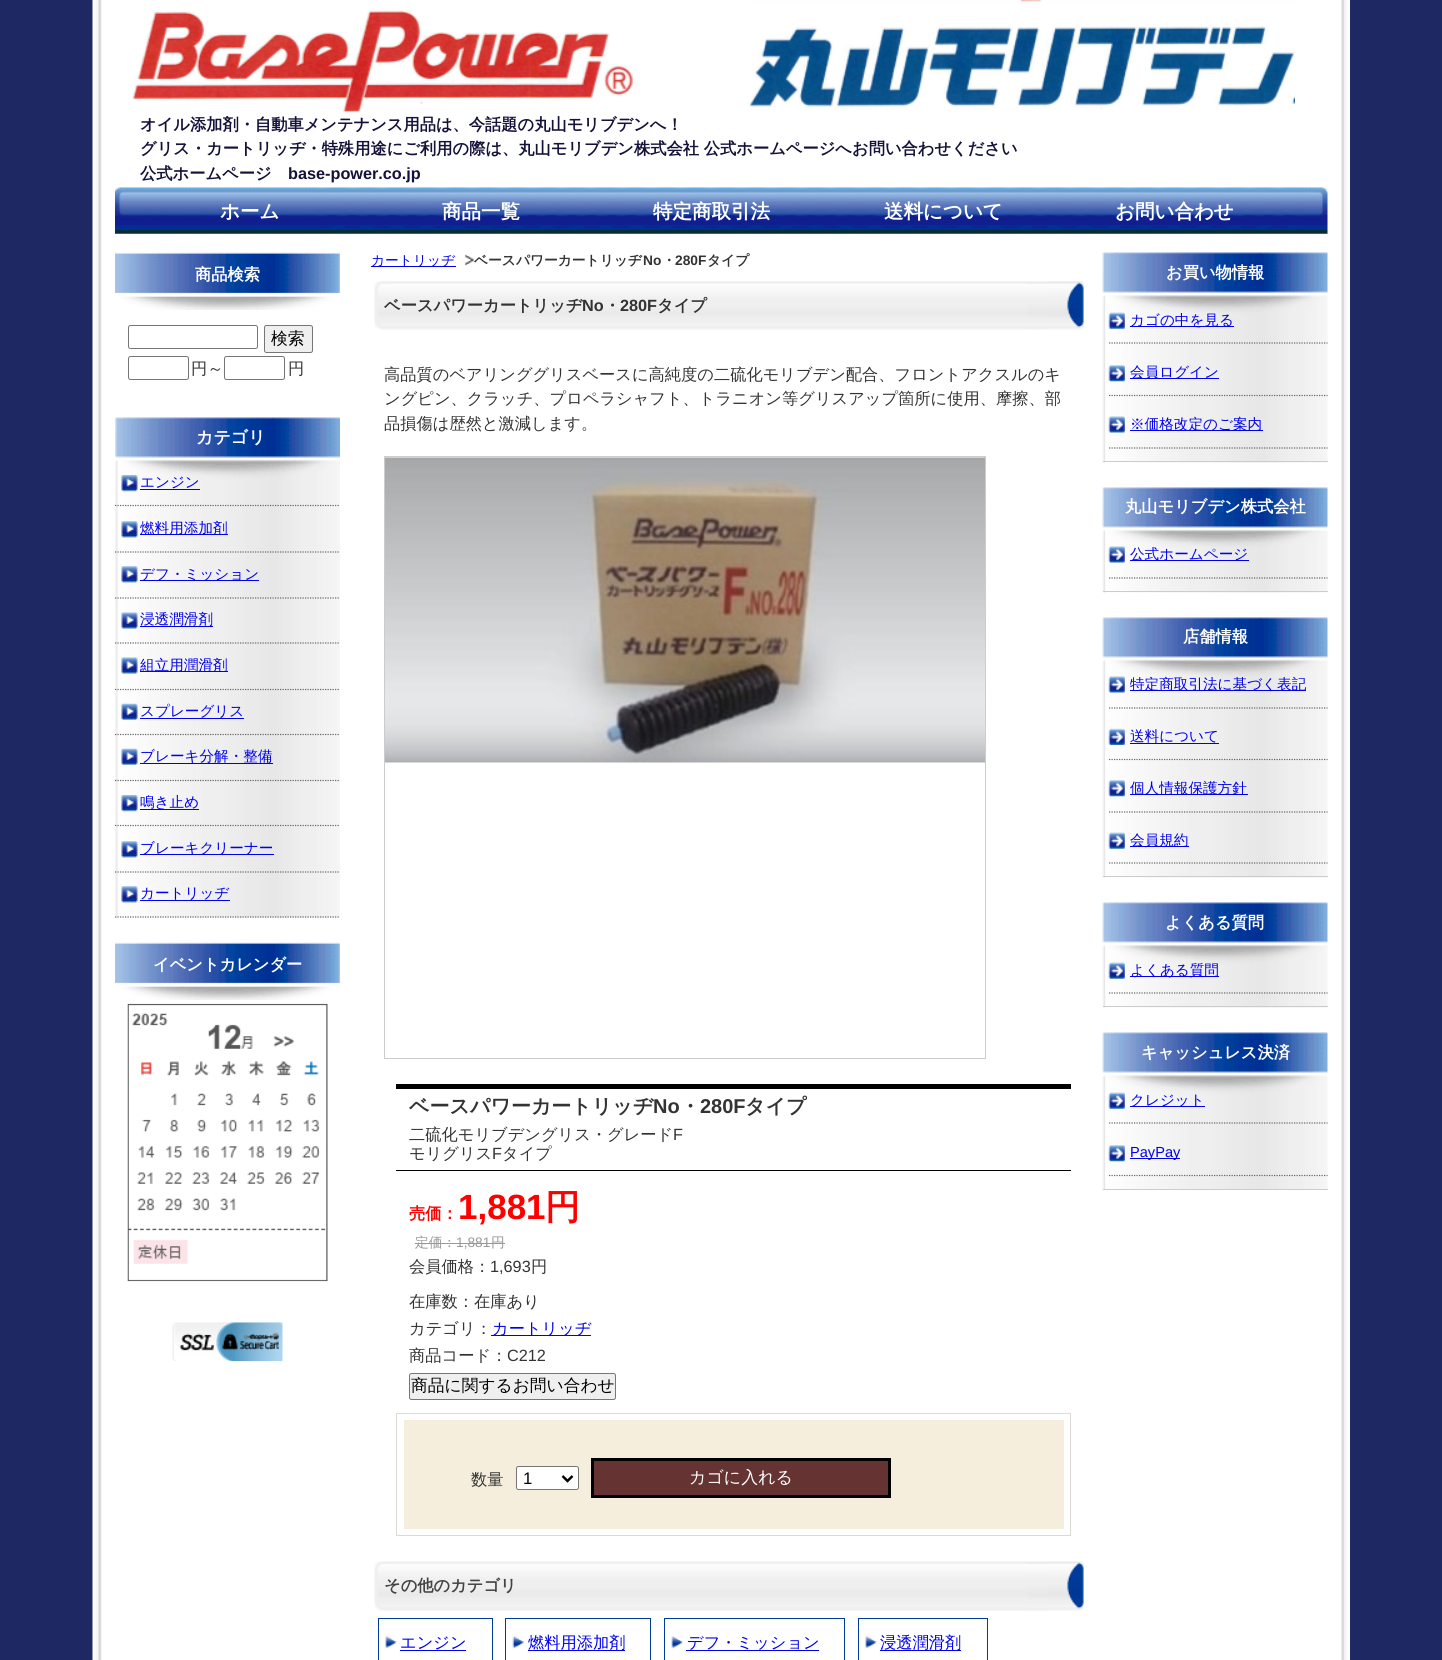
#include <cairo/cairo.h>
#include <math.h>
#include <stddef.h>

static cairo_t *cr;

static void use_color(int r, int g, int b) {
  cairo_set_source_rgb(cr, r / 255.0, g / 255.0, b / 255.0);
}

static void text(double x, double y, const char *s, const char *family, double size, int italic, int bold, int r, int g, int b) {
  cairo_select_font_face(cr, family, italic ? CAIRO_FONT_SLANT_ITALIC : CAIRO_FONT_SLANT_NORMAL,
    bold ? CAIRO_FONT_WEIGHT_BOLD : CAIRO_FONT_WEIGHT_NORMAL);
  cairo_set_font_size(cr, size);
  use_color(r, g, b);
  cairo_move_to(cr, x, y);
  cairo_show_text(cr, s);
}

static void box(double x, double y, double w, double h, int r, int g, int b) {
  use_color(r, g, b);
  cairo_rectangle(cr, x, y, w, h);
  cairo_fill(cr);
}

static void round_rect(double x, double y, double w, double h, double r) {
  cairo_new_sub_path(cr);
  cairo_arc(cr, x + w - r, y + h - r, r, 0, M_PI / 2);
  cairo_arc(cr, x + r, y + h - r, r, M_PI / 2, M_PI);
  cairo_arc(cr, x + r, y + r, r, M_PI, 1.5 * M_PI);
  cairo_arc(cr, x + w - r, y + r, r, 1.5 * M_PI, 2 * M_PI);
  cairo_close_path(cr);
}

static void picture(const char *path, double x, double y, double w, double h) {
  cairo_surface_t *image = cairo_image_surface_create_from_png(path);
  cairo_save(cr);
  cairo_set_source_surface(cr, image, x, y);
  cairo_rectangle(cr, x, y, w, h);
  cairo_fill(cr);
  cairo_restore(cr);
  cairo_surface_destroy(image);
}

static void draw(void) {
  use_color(30, 41, 100);
  cairo_paint(cr);
  picture("img_01.png", 92, 0, 1258, 1660);
  picture("img_02.png", 132, 10, 504, 104);
  picture("img_03.png", 747, 0, 548, 110);
  picture("img_04.png", 115, 187, 1213, 47);
  picture("img_05.png", 115, 252, 225, 58);
  round_rect(128.5, 325.5, 129, 23, 2);
  use_color(118, 118, 118);
  cairo_set_line_width(cr, 1);
  cairo_stroke(cr);
  use_color(239, 239, 239);
  round_rect(264.5, 325.5, 48, 27, 2);
  cairo_fill_preserve(cr);
  use_color(118, 118, 118);
  cairo_stroke(cr);
  round_rect(128.5, 356.5, 60, 23, 2);
  cairo_stroke(cr);
  round_rect(224.5, 356.5, 60, 23, 2);
  cairo_stroke(cr);
  picture("img_06.png", 115, 417, 225, 501);
  picture("img_07.png", 121, 475, 17, 17);
  cairo_new_path(cr);
  cairo_move_to(cr, 115, 505.5);
  cairo_line_to(cr, 340, 505.5);
  use_color(102, 102, 102);
  cairo_set_line_width(cr, 1.2);
  cairo_set_dash(cr, (double[]){1.25, 1.25}, 2, 0);
  cairo_stroke(cr);
  box(140, 489, 60, 1, 0, 0, 238);
  picture("img_08.png", 121, 521, 17, 17);
  cairo_new_path(cr);
  cairo_move_to(cr, 115, 552);
  cairo_line_to(cr, 340, 552);
  use_color(102, 102, 102);
  cairo_stroke(cr);
  box(140, 534, 88, 1, 0, 0, 238);
  picture("img_08.png", 121, 566, 17, 17);
  cairo_new_path(cr);
  cairo_move_to(cr, 115, 598);
  cairo_line_to(cr, 340, 598);
  use_color(102, 102, 102);
  cairo_stroke(cr);
  box(140, 580, 119, 1, 0, 0, 238);
  picture("img_09.png", 121, 612, 17, 17);
  cairo_new_path(cr);
  cairo_move_to(cr, 115, 643);
  cairo_line_to(cr, 340, 643);
  use_color(102, 102, 102);
  cairo_stroke(cr);
  box(140, 626, 73, 1, 0, 0, 238);
  picture("img_09.png", 121, 657, 17, 17);
  cairo_new_path(cr);
  cairo_move_to(cr, 115, 689.5);
  cairo_line_to(cr, 340, 689.5);
  use_color(102, 102, 102);
  cairo_stroke(cr);
  box(140, 671, 88, 1, 0, 0, 238);
  picture("img_10.png", 121, 703, 17, 17);
  cairo_new_path(cr);
  cairo_move_to(cr, 115, 734.5);
  cairo_line_to(cr, 340, 734.5);
  use_color(102, 102, 102);
  cairo_stroke(cr);
  box(140, 718, 104, 1, 0, 0, 238);
  picture("img_10.png", 121, 748, 17, 17);
  cairo_new_path(cr);
  cairo_move_to(cr, 115, 780.5);
  cairo_line_to(cr, 340, 780.5);
  use_color(102, 102, 102);
  cairo_stroke(cr);
  box(140, 763, 133, 1, 0, 0, 238);
  picture("img_07.png", 121, 795, 17, 17);
  cairo_new_path(cr);
  cairo_move_to(cr, 115, 825.5);
  cairo_line_to(cr, 340, 825.5);
  use_color(102, 102, 102);
  cairo_stroke(cr);
  box(140, 809, 59, 1, 0, 0, 238);
  picture("img_08.png", 121, 841, 17, 17);
  cairo_new_path(cr);
  cairo_move_to(cr, 115, 872);
  cairo_line_to(cr, 340, 872);
  use_color(102, 102, 102);
  cairo_stroke(cr);
  box(140, 854, 134, 1, 0, 0, 238);
  picture("img_08.png", 121, 886, 17, 17);
  cairo_new_path(cr);
  cairo_move_to(cr, 115, 917);
  cairo_line_to(cr, 340, 917);
  use_color(102, 102, 102);
  cairo_stroke(cr);
  box(140, 900, 90, 1, 0, 0, 238);
  picture("img_05.png", 115, 942, 225, 58);
  picture("img_11.png", 127, 1003, 201, 279);
  picture("img_12.png", 172, 1322, 111, 40);
  box(371, 266, 85, 1, 0, 0, 238);
  picture("img_13.png", 464, 254, 10, 12);
  picture("img_14.png", 374, 281, 710, 49);
  cairo_rectangle(cr, 384.5, 456.5, 601, 602);
  use_color(204, 204, 204);
  cairo_set_line_width(cr, 1);
  cairo_set_dash(cr, NULL, 0, 0);
  cairo_stroke(cr);
  picture("img_15.png", 385, 457, 600, 306);
  box(396, 1084, 675, 5, 0, 0, 0);
  box(396, 1170, 675, 1, 0, 0, 0);
  box(415, 1243, 41, 1, 153, 153, 153);
  box(456, 1243, 35, 1, 153, 153, 153);
  box(491, 1243, 14, 1, 153, 153, 153);
  box(491, 1335, 100, 1, 0, 0, 238);
  use_color(239, 239, 239);
  round_rect(409.5, 1373.5, 206, 26, 2);
  cairo_fill_preserve(cr);
  use_color(118, 118, 118);
  cairo_stroke(cr);
  cairo_rectangle(cr, 396.5, 1413.5, 674, 122);
  use_color(220, 218, 210);
  cairo_stroke(cr);
  box(404, 1420, 660, 109, 245, 238, 221);
  use_color(255, 255, 255);
  round_rect(516.5, 1466.5, 62, 23, 2);
  cairo_fill_preserve(cr);
  use_color(118, 118, 118);
  cairo_stroke(cr);
  cairo_new_path(cr);
  cairo_move_to(cr, 562.5, 1476);
  cairo_line_to(cr, 567.5, 1481);
  cairo_line_to(cr, 572.5, 1476);
  use_color(0, 0, 0);
  cairo_set_line_width(cr, 2.5);
  cairo_stroke(cr);
  use_color(102, 51, 51);
  cairo_rectangle(cr, 592.5, 1459.5, 297, 37);
  cairo_fill_preserve(cr);
  use_color(0, 0, 0);
  cairo_set_line_width(cr, 3);
  cairo_stroke(cr);
  picture("img_16.png", 374, 1561, 710, 50);
  picture("img_17.png", 385, 1636, 12, 13);
  cairo_rectangle(cr, 378.5, 1618.5, 114, 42);
  use_color(0, 59, 151);
  cairo_set_line_width(cr, 1);
  cairo_stroke(cr);
  box(400, 1650, 66, 1, 0, 0, 238);
  picture("img_18.png", 512, 1636, 12, 13);
  cairo_rectangle(cr, 505.5, 1618.5, 145, 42);
  use_color(0, 59, 151);
  cairo_stroke(cr);
  box(528, 1650, 97, 1, 0, 0, 238);
  picture("img_19.png", 671, 1636, 12, 13);
  cairo_rectangle(cr, 664.5, 1618.5, 180, 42);
  use_color(0, 59, 151);
  cairo_stroke(cr);
  box(686, 1650, 133, 1, 0, 0, 238);
  picture("img_17.png", 865, 1636, 12, 13);
  cairo_rectangle(cr, 858.5, 1618.5, 129, 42);
  use_color(0, 59, 151);
  cairo_stroke(cr);
  box(880, 1650, 81, 1, 0, 0, 238);
  picture("img_20.png", 1102, 252, 226, 211);
  box(1103, 461, 225, 1, 204, 204, 204);
  picture("img_21.png", 1108, 312, 17, 17);
  cairo_new_path(cr);
  cairo_move_to(cr, 1109, 343);
  cairo_line_to(cr, 1327.5, 343);
  use_color(102, 102, 102);
  cairo_set_line_width(cr, 1.2);
  cairo_set_dash(cr, (double[]){1.25, 1.25}, 2, 0);
  cairo_stroke(cr);
  box(1130, 326, 104, 1, 0, 0, 238);
  picture("img_22.png", 1108, 365, 17, 17);
  cairo_new_path(cr);
  cairo_move_to(cr, 1109, 395.5);
  cairo_line_to(cr, 1327.5, 395.5);
  use_color(102, 102, 102);
  cairo_stroke(cr);
  box(1130, 378, 89, 1, 0, 0, 238);
  picture("img_23.png", 1108, 416, 17, 17);
  cairo_new_path(cr);
  cairo_move_to(cr, 1109, 448);
  cairo_line_to(cr, 1327.5, 448);
  use_color(102, 102, 102);
  cairo_stroke(cr);
  box(1130, 430, 133, 1, 0, 0, 238);
  picture("img_24.png", 1102, 487, 226, 106);
  box(1103, 591, 225, 1, 204, 204, 204);
  picture("img_23.png", 1108, 546, 17, 17);
  cairo_new_path(cr);
  cairo_move_to(cr, 1109, 578);
  cairo_line_to(cr, 1327.5, 578);
  use_color(102, 102, 102);
  cairo_stroke(cr);
  box(1130, 560, 119, 1, 0, 0, 238);
  picture("img_25.png", 1102, 617, 226, 261);
  box(1103, 876, 225, 1, 204, 204, 204);
  picture("img_23.png", 1108, 676, 17, 17);
  cairo_new_path(cr);
  cairo_move_to(cr, 1109, 708);
  cairo_line_to(cr, 1327.5, 708);
  use_color(102, 102, 102);
  cairo_stroke(cr);
  box(1130, 690, 176, 1, 0, 0, 238);
  picture("img_26.png", 1108, 728, 17, 17);
  cairo_new_path(cr);
  cairo_move_to(cr, 1109, 759.5);
  cairo_line_to(cr, 1327.5, 759.5);
  use_color(102, 102, 102);
  cairo_stroke(cr);
  box(1130, 743, 89, 1, 0, 0, 238);
  picture("img_27.png", 1108, 780, 17, 17);
  cairo_new_path(cr);
  cairo_move_to(cr, 1109, 812);
  cairo_line_to(cr, 1327.5, 812);
  use_color(102, 102, 102);
  cairo_stroke(cr);
  box(1130, 794, 118, 1, 0, 0, 238);
  picture("img_21.png", 1108, 832, 17, 17);
  cairo_new_path(cr);
  cairo_move_to(cr, 1109, 863);
  cairo_line_to(cr, 1327.5, 863);
  use_color(102, 102, 102);
  cairo_stroke(cr);
  box(1130, 846, 59, 1, 0, 0, 238);
  picture("img_24.png", 1102, 902, 226, 106);
  box(1103, 1006, 225, 1, 204, 204, 204);
  picture("img_21.png", 1108, 962, 17, 17);
  cairo_new_path(cr);
  cairo_move_to(cr, 1109, 993);
  cairo_line_to(cr, 1327.5, 993);
  use_color(102, 102, 102);
  cairo_stroke(cr);
  box(1130, 976, 89, 1, 0, 0, 238);
  picture("img_28.png", 1102, 1032, 226, 158);
  box(1103, 1189, 225, 1, 204, 204, 204);
  picture("img_21.png", 1108, 1092, 17, 17);
  cairo_new_path(cr);
  cairo_move_to(cr, 1109, 1123);
  cairo_line_to(cr, 1327.5, 1123);
  use_color(102, 102, 102);
  cairo_stroke(cr);
  box(1130, 1106, 75, 1, 0, 0, 238);
  picture("img_22.png", 1108, 1145, 17, 17);
  cairo_new_path(cr);
  cairo_move_to(cr, 1109, 1175.5);
  cairo_line_to(cr, 1327.5, 1175.5);
  use_color(102, 102, 102);
  cairo_stroke(cr);
  box(1130, 1158, 50, 1, 0, 0, 238);
  text(140, 130, "オイル添加剤・自動車メンテナンス用品は、今話題の丸山モリブデンへ！", "WenQuanYi Zen Hei", 16.25, 0, 1, 20, 18, 58);
  text(140, 154, "グリス・カートリッヂ・特殊用途にご利用の際は、丸山モリブデン株式会社 公式ホームページへお問い合わせください", "WenQuanYi Zen Hei", 16.25, 0, 1, 20, 18, 58);
  text(140, 179, "公式ホームページ", "WenQuanYi Zen Hei", 16.25, 0, 1, 20, 18, 58);
  text(288, 179, "base-power.co.jp", "Liberation Sans", 16.25, 0, 1, 20, 18, 58);
  text(220, 218, "ホーム", "WenQuanYi Zen Hei", 19.5, 0, 1, 255, 255, 255);
  text(442, 218, "商品一覧", "WenQuanYi Zen Hei", 19.5, 0, 1, 255, 255, 255);
  text(653, 218, "特定商取引法", "WenQuanYi Zen Hei", 19.5, 0, 1, 255, 255, 255);
  text(884, 218, "送料について", "WenQuanYi Zen Hei", 19.5, 0, 1, 255, 255, 255);
  text(1115, 218, "お問い合わせ", "WenQuanYi Zen Hei", 19.5, 0, 1, 255, 255, 255);
  text(195, 280, "商品検索", "WenQuanYi Zen Hei", 16.25, 0, 1, 255, 255, 255);
  text(271, 344, "検索", "WenQuanYi Zen Hei Medium", 16.75, 0, 0, 0, 0, 0);
  text(191, 374, "円～", "WenQuanYi Zen Hei Medium", 16.25, 0, 0, 51, 51, 51);
  text(288, 374, "円", "WenQuanYi Zen Hei Medium", 16.25, 0, 0, 51, 51, 51);
  text(196, 443, "カテゴリ", "WenQuanYi Zen Hei", 17, 0, 1, 255, 255, 255);
  text(140, 487, "エンジン", "WenQuanYi Zen Hei Medium", 14.6, 0, 0, 0, 0, 238);
  text(140, 533, "燃料用添加剤", "WenQuanYi Zen Hei Medium", 14.6, 0, 0, 0, 0, 238);
  text(140, 579, "デフ・ミッション", "WenQuanYi Zen Hei Medium", 14.6, 0, 0, 0, 0, 238);
  text(140, 624, "浸透潤滑剤", "WenQuanYi Zen Hei Medium", 14.6, 0, 0, 0, 0, 238);
  text(140, 670, "組立用潤滑剤", "WenQuanYi Zen Hei Medium", 14.6, 0, 0, 0, 0, 238);
  text(140, 716, "スプレーグリス", "WenQuanYi Zen Hei Medium", 14.6, 0, 0, 0, 0, 238);
  text(140, 761, "ブレーキ分解・整備", "WenQuanYi Zen Hei Medium", 14.6, 0, 0, 0, 0, 238);
  text(140, 807, "鳴き止め", "WenQuanYi Zen Hei Medium", 14.6, 0, 0, 0, 0, 238);
  text(140, 853, "ブレーキクリーナー", "WenQuanYi Zen Hei Medium", 14.6, 0, 0, 0, 0, 238);
  text(140, 898, "カートリッヂ", "WenQuanYi Zen Hei Medium", 14.6, 0, 0, 0, 0, 238);
  text(153, 970, "イベントカレンダー", "WenQuanYi Zen Hei", 16.25, 0, 1, 255, 255, 255);
  text(371, 265, "カートリッヂ", "WenQuanYi Zen Hei Medium", 13.75, 0, 0, 0, 0, 238);
  text(474, 265, "ベースパワーカートリッヂ", "WenQuanYi Zen Hei", 13.75, 0, 1, 51, 51, 51);
  text(643, 265, "No", "Liberation Sans", 13.75, 0, 1, 51, 51, 51);
  text(662, 265, "・", "WenQuanYi Zen Hei", 13.75, 0, 1, 51, 51, 51);
  text(675, 265, "280F", "Liberation Sans", 13.75, 0, 1, 51, 51, 51);
  text(707, 265, "タイプ", "WenQuanYi Zen Hei", 13.75, 0, 1, 51, 51, 51);
  text(384, 311, "ベースパワーカートリッヂ", "WenQuanYi Zen Hei", 16.25, 0, 1, 51, 51, 51);
  text(582, 311, "No", "Liberation Sans", 16.25, 0, 1, 51, 51, 51);
  text(604, 311, "・", "WenQuanYi Zen Hei", 16.25, 0, 1, 51, 51, 51);
  text(620, 311, "280F", "Liberation Sans", 16.25, 0, 1, 51, 51, 51);
  text(657, 311, "タイプ", "WenQuanYi Zen Hei", 16.25, 0, 1, 51, 51, 51);
  text(384, 380, "高品質のベアリンググリスベースに高純度の二硫化モリブデン配合、フロントアクスルのキ", "WenQuanYi Zen Hei Medium", 16.25, 0, 0, 51, 51, 51);
  text(384, 404, "ングピン、クラッチ、プロペラシャフト、トラニオン等グリスアップ箇所に使用、摩擦、部", "WenQuanYi Zen Hei Medium", 16.25, 0, 0, 51, 51, 51);
  text(384, 429, "品損傷は歴然と激減します。", "WenQuanYi Zen Hei Medium", 16.25, 0, 0, 51, 51, 51);
  text(409, 1113, "ベースパワーカートリッヂ", "WenQuanYi Zen Hei", 20, 0, 1, 51, 51, 51);
  text(653, 1113, "No", "Liberation Sans", 20, 0, 1, 51, 51, 51);
  text(680, 1113, "・", "WenQuanYi Zen Hei", 20, 0, 1, 51, 51, 51);
  text(700, 1113, "280F", "Liberation Sans", 20, 0, 1, 51, 51, 51);
  text(745, 1113, "タイプ", "WenQuanYi Zen Hei", 20, 0, 1, 51, 51, 51);
  text(409, 1140, "二硫化モリブデングリス・グレード", "WenQuanYi Zen Hei Medium", 16.25, 0, 0, 51, 51, 51);
  text(673, 1140, "F", "Liberation Sans", 16.25, 0, 0, 51, 51, 51);
  text(409, 1159, "モリグリス", "WenQuanYi Zen Hei Medium", 16.25, 0, 0, 51, 51, 51);
  text(492, 1159, "F", "Liberation Sans", 16.25, 0, 0, 51, 51, 51);
  text(502, 1159, "タイプ", "WenQuanYi Zen Hei Medium", 16.25, 0, 0, 51, 51, 51);
  text(409, 1219, "売価：", "WenQuanYi Zen Hei", 16.25, 0, 1, 255, 0, 0);
  text(458, 1219, "1,881", "Liberation Sans", 35, 0, 1, 255, 0, 0);
  text(545, 1219, "円", "WenQuanYi Zen Hei", 35, 0, 1, 255, 0, 0);
  text(415, 1247, "定価：", "WenQuanYi Zen Hei Medium", 13.75, 0, 0, 153, 153, 153);
  text(456, 1247, "1,881", "Liberation Sans", 13.75, 0, 0, 153, 153, 153);
  text(491, 1247, "円", "WenQuanYi Zen Hei Medium", 13.75, 0, 0, 153, 153, 153);
  text(409, 1272, "会員価格：", "WenQuanYi Zen Hei Medium", 16.25, 0, 0, 51, 51, 51);
  text(490, 1272, "1,693", "Liberation Sans", 16.25, 0, 0, 51, 51, 51);
  text(531, 1272, "円", "WenQuanYi Zen Hei Medium", 16.25, 0, 0, 51, 51, 51);
  text(409, 1307, "在庫数：在庫あり", "WenQuanYi Zen Hei Medium", 16.25, 0, 0, 51, 51, 51);
  text(409, 1334, "カテゴリ：", "WenQuanYi Zen Hei Medium", 16.25, 0, 0, 51, 51, 51);
  text(492, 1334, "カートリッヂ", "WenQuanYi Zen Hei Medium", 16.25, 0, 0, 0, 0, 238);
  text(409, 1361, "商品コード：", "WenQuanYi Zen Hei Medium", 16.25, 0, 0, 51, 51, 51);
  text(507, 1361, "C212", "Liberation Sans", 16.25, 0, 0, 51, 51, 51);
  text(411, 1391, "商品に関するお問い合わせ", "WenQuanYi Zen Hei Medium", 16.75, 0, 0, 0, 0, 0);
  text(471, 1485, "数量", "WenQuanYi Zen Hei Medium", 16.25, 0, 0, 51, 51, 51);
  text(523, 1484, "1", "Liberation Sans", 16.75, 0, 0, 0, 0, 0);
  text(689, 1483, "カゴに入れる", "WenQuanYi Zen Hei Medium", 17, 0, 0, 255, 255, 255);
  text(384, 1591, "その他のカテゴリ", "WenQuanYi Zen Hei", 16.25, 0, 1, 68, 68, 68);
  text(400, 1648, "エンジン", "WenQuanYi Zen Hei Medium", 16.25, 0, 0, 0, 0, 238);
  text(528, 1648, "燃料用添加剤", "WenQuanYi Zen Hei Medium", 16.25, 0, 0, 0, 0, 238);
  text(687, 1648, "デフ・ミッション", "WenQuanYi Zen Hei Medium", 16.25, 0, 0, 0, 0, 238);
  text(880, 1648, "浸透潤滑剤", "WenQuanYi Zen Hei Medium", 16.25, 0, 0, 0, 0, 238);
  text(1166, 278, "お買い物情報", "WenQuanYi Zen Hei", 16.25, 0, 1, 255, 255, 255);
  text(1130, 325, "カゴの中を見る", "WenQuanYi Zen Hei Medium", 14.6, 0, 0, 0, 0, 238);
  text(1130, 377, "会員ログイン", "WenQuanYi Zen Hei Medium", 14.6, 0, 0, 0, 0, 238);
  text(1130, 429, "※価格改定のご案内", "WenQuanYi Zen Hei Medium", 14.6, 0, 0, 0, 0, 238);
  text(1125, 512, "丸山モリブデン株式会社", "WenQuanYi Zen Hei", 16.25, 0, 1, 255, 255, 255);
  text(1130, 559, "公式ホームページ", "WenQuanYi Zen Hei Medium", 14.6, 0, 0, 0, 0, 238);
  text(1183, 642, "店舗情報", "WenQuanYi Zen Hei", 16.25, 0, 1, 255, 255, 255);
  text(1130, 689, "特定商取引法に基づく表記", "WenQuanYi Zen Hei Medium", 14.6, 0, 0, 0, 0, 238);
  text(1130, 741, "送料について", "WenQuanYi Zen Hei Medium", 14.6, 0, 0, 0, 0, 238);
  text(1130, 793, "個人情報保護方針", "WenQuanYi Zen Hei Medium", 14.6, 0, 0, 0, 0, 238);
  text(1130, 845, "会員規約", "WenQuanYi Zen Hei Medium", 14.6, 0, 0, 0, 0, 238);
  text(1165, 928, "よくある質問", "WenQuanYi Zen Hei", 16.25, 0, 1, 255, 255, 255);
  text(1130, 975, "よくある質問", "WenQuanYi Zen Hei Medium", 14.6, 0, 0, 0, 0, 238);
  text(1141, 1058, "キャッシュレス決済", "WenQuanYi Zen Hei", 16.25, 0, 1, 255, 255, 255);
  text(1130, 1105, "クレジット", "WenQuanYi Zen Hei Medium", 14.6, 0, 0, 0, 0, 238);
  text(1130, 1157, "PayPay", "Liberation Sans", 14.6, 0, 0, 0, 0, 238);
}

int main(void) {
  cairo_surface_t *surface = cairo_image_surface_create(CAIRO_FORMAT_RGB24, 1442, 1660);
  cr = cairo_create(surface);
  cairo_font_options_t *options = cairo_font_options_create();
  cairo_font_options_set_hint_metrics(options, CAIRO_HINT_METRICS_OFF);
  cairo_font_options_set_hint_style(options, CAIRO_HINT_STYLE_NONE);
  cairo_set_font_options(cr, options);
  cairo_set_miter_limit(cr, 4);
  draw();
  cairo_surface_write_to_png(surface, "out.png");
  cairo_font_options_destroy(options);
  cairo_destroy(cr);
  cairo_surface_destroy(surface);
  return 0;
}
